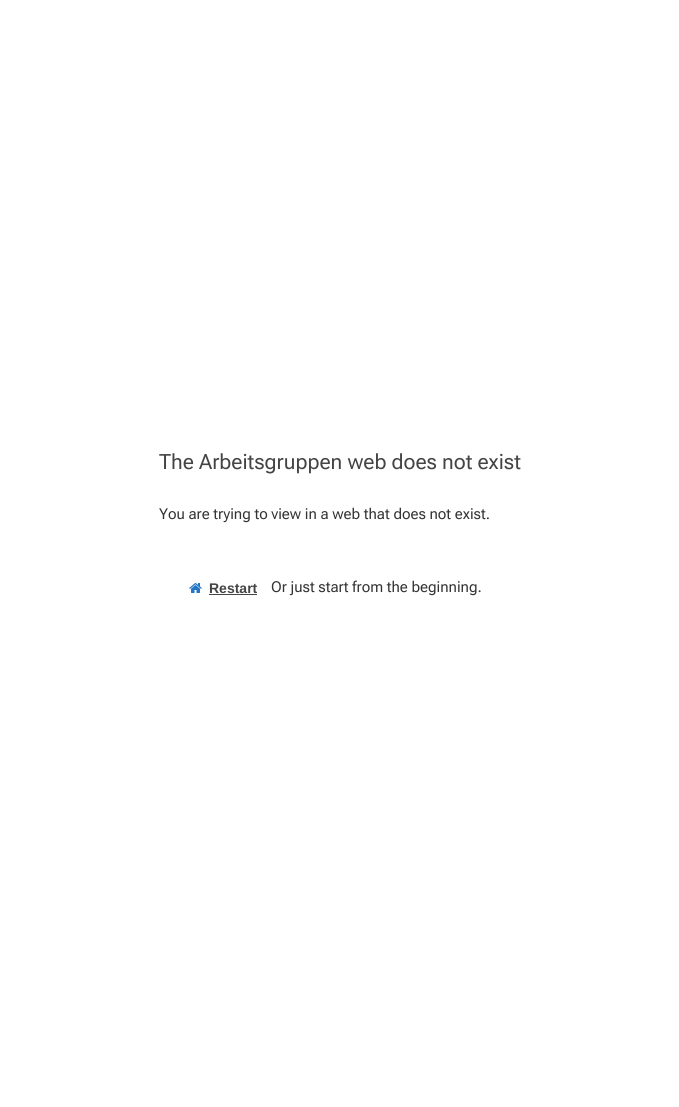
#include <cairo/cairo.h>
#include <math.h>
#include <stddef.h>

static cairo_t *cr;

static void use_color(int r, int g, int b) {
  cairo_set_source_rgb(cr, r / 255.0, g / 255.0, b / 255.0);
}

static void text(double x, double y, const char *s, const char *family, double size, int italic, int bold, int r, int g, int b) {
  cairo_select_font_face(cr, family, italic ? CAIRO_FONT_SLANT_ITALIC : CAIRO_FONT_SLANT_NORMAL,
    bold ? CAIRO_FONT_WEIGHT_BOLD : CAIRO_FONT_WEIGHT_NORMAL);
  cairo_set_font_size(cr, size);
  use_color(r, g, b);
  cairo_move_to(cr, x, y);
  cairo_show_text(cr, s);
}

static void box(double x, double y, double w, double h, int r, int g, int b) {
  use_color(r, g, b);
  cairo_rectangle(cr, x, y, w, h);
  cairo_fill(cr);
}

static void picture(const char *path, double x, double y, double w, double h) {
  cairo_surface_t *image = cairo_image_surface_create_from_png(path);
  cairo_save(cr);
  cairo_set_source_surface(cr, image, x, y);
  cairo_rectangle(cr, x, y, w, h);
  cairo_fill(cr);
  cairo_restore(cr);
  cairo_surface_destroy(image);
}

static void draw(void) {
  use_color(255, 255, 255);
  cairo_paint(cr);
  picture("img_01.png", 189, 583, 13, 10);
  box(209, 594, 48, 1, 68, 68, 68);
  text(159, 469, "The Arbeitsgruppen web does not exist", "Roboto Flex", 21, 1, 0, 68, 68, 68);
  text(159, 519, "You are trying to view in a web that does not exist.", "Roboto Flex", 15, 1, 0, 51, 51, 51);
  text(209, 593, "Restart", "Liberation Sans", 14, 0, 1, 68, 68, 68);
  text(271, 592, "Or just start from the beginning.", "Roboto Flex", 15, 1, 0, 51, 51, 51);
}

int main(void) {
  cairo_surface_t *surface = cairo_image_surface_create(CAIRO_FORMAT_RGB24, 679, 1107);
  cr = cairo_create(surface);
  cairo_font_options_t *options = cairo_font_options_create();
  cairo_font_options_set_hint_metrics(options, CAIRO_HINT_METRICS_OFF);
  cairo_font_options_set_hint_style(options, CAIRO_HINT_STYLE_NONE);
  cairo_set_font_options(cr, options);
  cairo_set_miter_limit(cr, 4);
  draw();
  cairo_surface_write_to_png(surface, "out.png");
  cairo_font_options_destroy(options);
  cairo_destroy(cr);
  cairo_surface_destroy(surface);
  return 0;
}
